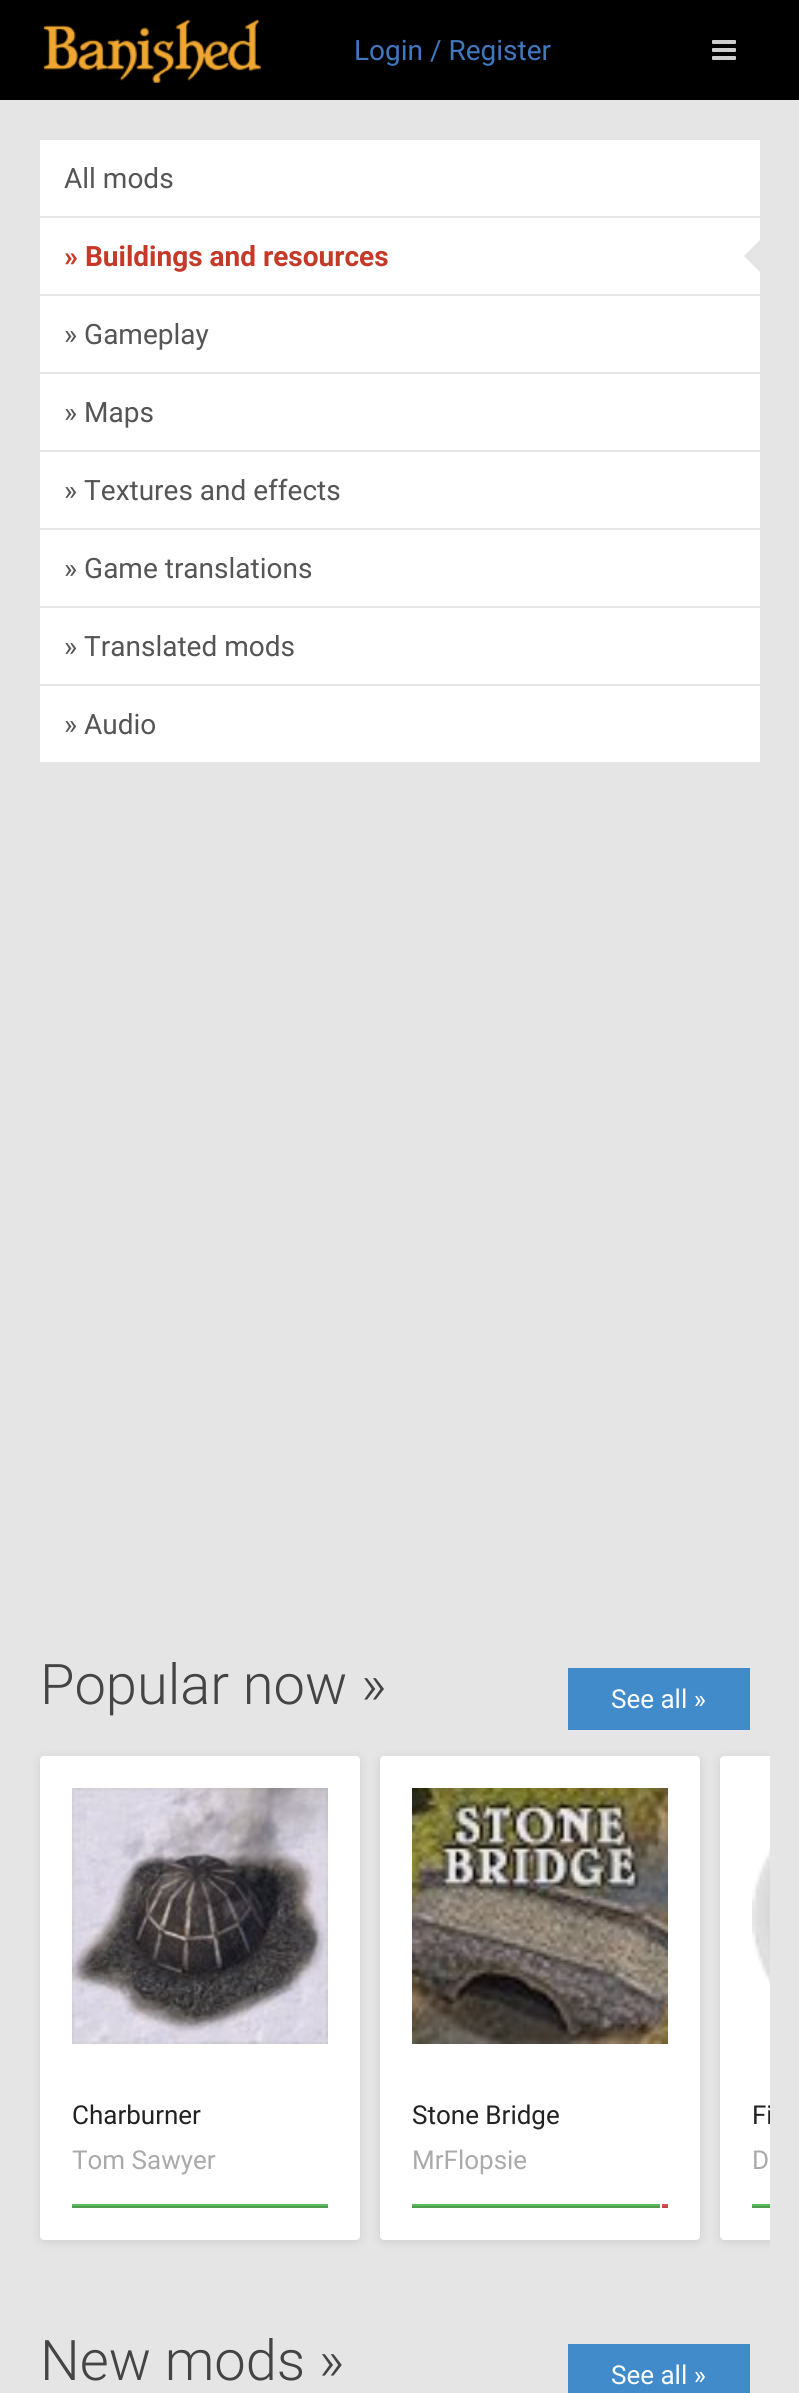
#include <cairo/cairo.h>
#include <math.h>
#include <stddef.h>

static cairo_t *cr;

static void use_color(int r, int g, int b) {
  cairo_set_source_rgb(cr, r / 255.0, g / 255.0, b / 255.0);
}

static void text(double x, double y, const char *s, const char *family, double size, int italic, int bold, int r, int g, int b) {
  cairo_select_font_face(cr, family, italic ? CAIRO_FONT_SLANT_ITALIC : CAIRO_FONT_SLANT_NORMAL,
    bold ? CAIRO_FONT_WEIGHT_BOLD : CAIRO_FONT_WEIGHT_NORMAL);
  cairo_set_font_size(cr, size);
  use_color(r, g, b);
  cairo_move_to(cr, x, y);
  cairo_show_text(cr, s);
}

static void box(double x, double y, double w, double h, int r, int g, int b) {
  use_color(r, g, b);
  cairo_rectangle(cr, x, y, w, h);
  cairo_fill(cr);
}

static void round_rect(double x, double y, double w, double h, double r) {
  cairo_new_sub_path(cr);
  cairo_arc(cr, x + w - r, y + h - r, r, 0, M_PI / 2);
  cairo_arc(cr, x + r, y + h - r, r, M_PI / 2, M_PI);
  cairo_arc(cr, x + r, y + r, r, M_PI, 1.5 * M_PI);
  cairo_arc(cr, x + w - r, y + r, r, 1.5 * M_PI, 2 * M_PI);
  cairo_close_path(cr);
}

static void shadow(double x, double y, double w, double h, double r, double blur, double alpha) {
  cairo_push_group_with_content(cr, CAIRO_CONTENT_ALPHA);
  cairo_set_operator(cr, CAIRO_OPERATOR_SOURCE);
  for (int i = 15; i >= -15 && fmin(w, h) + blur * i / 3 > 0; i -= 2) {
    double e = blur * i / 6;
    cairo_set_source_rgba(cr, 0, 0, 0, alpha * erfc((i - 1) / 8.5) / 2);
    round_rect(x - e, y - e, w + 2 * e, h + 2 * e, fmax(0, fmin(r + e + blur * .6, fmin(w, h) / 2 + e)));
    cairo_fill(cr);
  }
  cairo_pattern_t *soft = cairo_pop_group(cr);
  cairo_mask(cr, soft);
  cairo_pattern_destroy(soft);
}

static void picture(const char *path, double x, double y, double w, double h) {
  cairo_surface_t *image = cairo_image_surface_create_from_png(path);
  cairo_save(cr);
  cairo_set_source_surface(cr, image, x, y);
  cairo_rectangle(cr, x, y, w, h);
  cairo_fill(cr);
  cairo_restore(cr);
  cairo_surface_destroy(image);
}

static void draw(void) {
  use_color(229, 229, 229);
  cairo_paint(cr);
  box(0, 0, 799, 100, 0, 0, 0);
  picture("img_01.png", 43, 19, 218, 64);
  picture("img_02.png", 712, 40, 24, 20);
  box(40, 140, 720, 622, 255, 255, 255);
  box(40, 216, 720, 2, 229, 229, 229);
  box(40, 294, 720, 2, 229, 229, 229);
  cairo_new_path(cr);
  cairo_move_to(cr, 760, 240);
  cairo_line_to(cr, 760, 272);
  cairo_line_to(cr, 744, 256);
  cairo_close_path(cr);
  cairo_fill(cr);
  box(40, 372, 720, 2, 229, 229, 229);
  box(40, 450, 720, 2, 229, 229, 229);
  box(40, 528, 720, 2, 229, 229, 229);
  box(40, 606, 720, 2, 229, 229, 229);
  box(40, 684, 720, 2, 229, 229, 229);
  box(568, 1668, 182, 62, 66, 139, 202);
  use_color(0, 0, 0);
  shadow(40, 1758, 320, 484, 4, 5, 0.1);
  use_color(255, 255, 255);
  round_rect(40, 1756, 320, 484, 4);
  cairo_fill(cr);
  picture("img_03.png", 72, 1788, 256, 256);
  box(72, 2204, 258, 2, 92, 184, 92);
  box(72, 2206, 256, 2, 78, 156, 78);
  box(328, 2204, 2, 4, 255, 255, 255);
  use_color(0, 0, 0);
  shadow(380, 1758, 320, 484, 4, 5, 0.1);
  use_color(255, 255, 255);
  round_rect(380, 1756, 320, 484, 4);
  cairo_fill(cr);
  picture("img_04.png", 412, 1788, 256, 256);
  box(412, 2204, 250, 2, 92, 184, 92);
  box(412, 2206, 248, 2, 78, 156, 78);
  box(660, 2204, 2, 4, 255, 255, 255);
  box(662, 2204, 6, 2, 217, 83, 79);
  box(662, 2206, 6, 2, 184, 71, 67);
  cairo_save(cr);
  cairo_rectangle(cr, 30, 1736, 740, 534);
  cairo_clip(cr);
  use_color(0, 0, 0);
  shadow(720, 1758, 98, 484, 4, 5, 0.1);
  cairo_restore(cr);
  use_color(255, 255, 255);
  cairo_new_path(cr);
  cairo_move_to(cr, 724, 1756);
  cairo_line_to(cr, 770, 1756);
  cairo_line_to(cr, 770, 2240);
  cairo_line_to(cr, 724, 2240);
  cairo_curve_to(cr, 722, 2240, 720, 2238, 720, 2236);
  cairo_line_to(cr, 720, 1760);
  cairo_curve_to(cr, 720, 1758, 722, 1756, 724, 1756);
  cairo_close_path(cr);
  cairo_fill(cr);
  picture("img_05.png", 752, 1849, 18, 134);
  box(752, 2204, 18, 2, 92, 184, 92);
  box(752, 2206, 18, 2, 78, 156, 78);
  box(568, 2344, 182, 49, 66, 139, 202);
  text(354, 60, "Login / Register", "Roboto", 28, 0, 0, 64, 120, 192);
  text(64, 188, "All mods", "Roboto", 28, 0, 0, 85, 85, 85);
  text(64, 266, "» Buildings and resources", "Roboto", 28, 0, 1, 197, 57, 40);
  text(64, 344, "» Gameplay", "Roboto", 28, 0, 0, 85, 85, 85);
  text(64, 422, "» Maps", "Roboto", 28, 0, 0, 85, 85, 85);
  text(64, 500, "» Textures and effects", "Roboto", 28, 0, 0, 85, 85, 85);
  text(64, 578, "» Game translations", "Roboto", 28, 0, 0, 85, 85, 85);
  text(64, 656, "» Translated mods", "Roboto", 28, 0, 0, 85, 85, 85);
  text(64, 734, "» Audio", "Roboto", 28, 0, 0, 85, 85, 85);
  text(40, 1704, "Popular now »", "Roboto Light", 56, 0, 0, 68, 68, 68);
  text(611, 1708, "See all »", "Roboto", 26, 0, 0, 255, 255, 255);
  text(72, 2124, "Charburner", "Roboto", 26, 0, 0, 34, 34, 34);
  text(72, 2169, "Tom Sawyer", "Roboto", 26, 0, 0, 170, 170, 170);
  text(412, 2124, "Stone Bridge", "Roboto", 26, 0, 0, 34, 34, 34);
  text(412, 2169, "MrFlopsie", "Roboto", 26, 0, 0, 170, 170, 170);
  cairo_save(cr);
  cairo_rectangle(cr, 752, 2096, 18, 40);
  cairo_clip(cr);
  text(752, 2124, "Fi", "Roboto", 26, 0, 0, 34, 34, 34);
  cairo_restore(cr);
  text(752, 2169, "D", "Roboto", 26, 0, 0, 170, 170, 170);
  text(40, 2380, "New mods »", "Roboto Light", 56, 0, 0, 68, 68, 68);
  text(611, 2384, "See all »", "Roboto", 26, 0, 0, 255, 255, 255);
}

int main(void) {
  cairo_surface_t *surface = cairo_image_surface_create(CAIRO_FORMAT_RGB24, 799, 2393);
  cr = cairo_create(surface);
  cairo_font_options_t *options = cairo_font_options_create();
  cairo_font_options_set_hint_metrics(options, CAIRO_HINT_METRICS_OFF);
  cairo_font_options_set_hint_style(options, CAIRO_HINT_STYLE_NONE);
  cairo_set_font_options(cr, options);
  cairo_set_miter_limit(cr, 4);
  draw();
  cairo_surface_write_to_png(surface, "out.png");
  cairo_font_options_destroy(options);
  cairo_destroy(cr);
  cairo_surface_destroy(surface);
  return 0;
}
